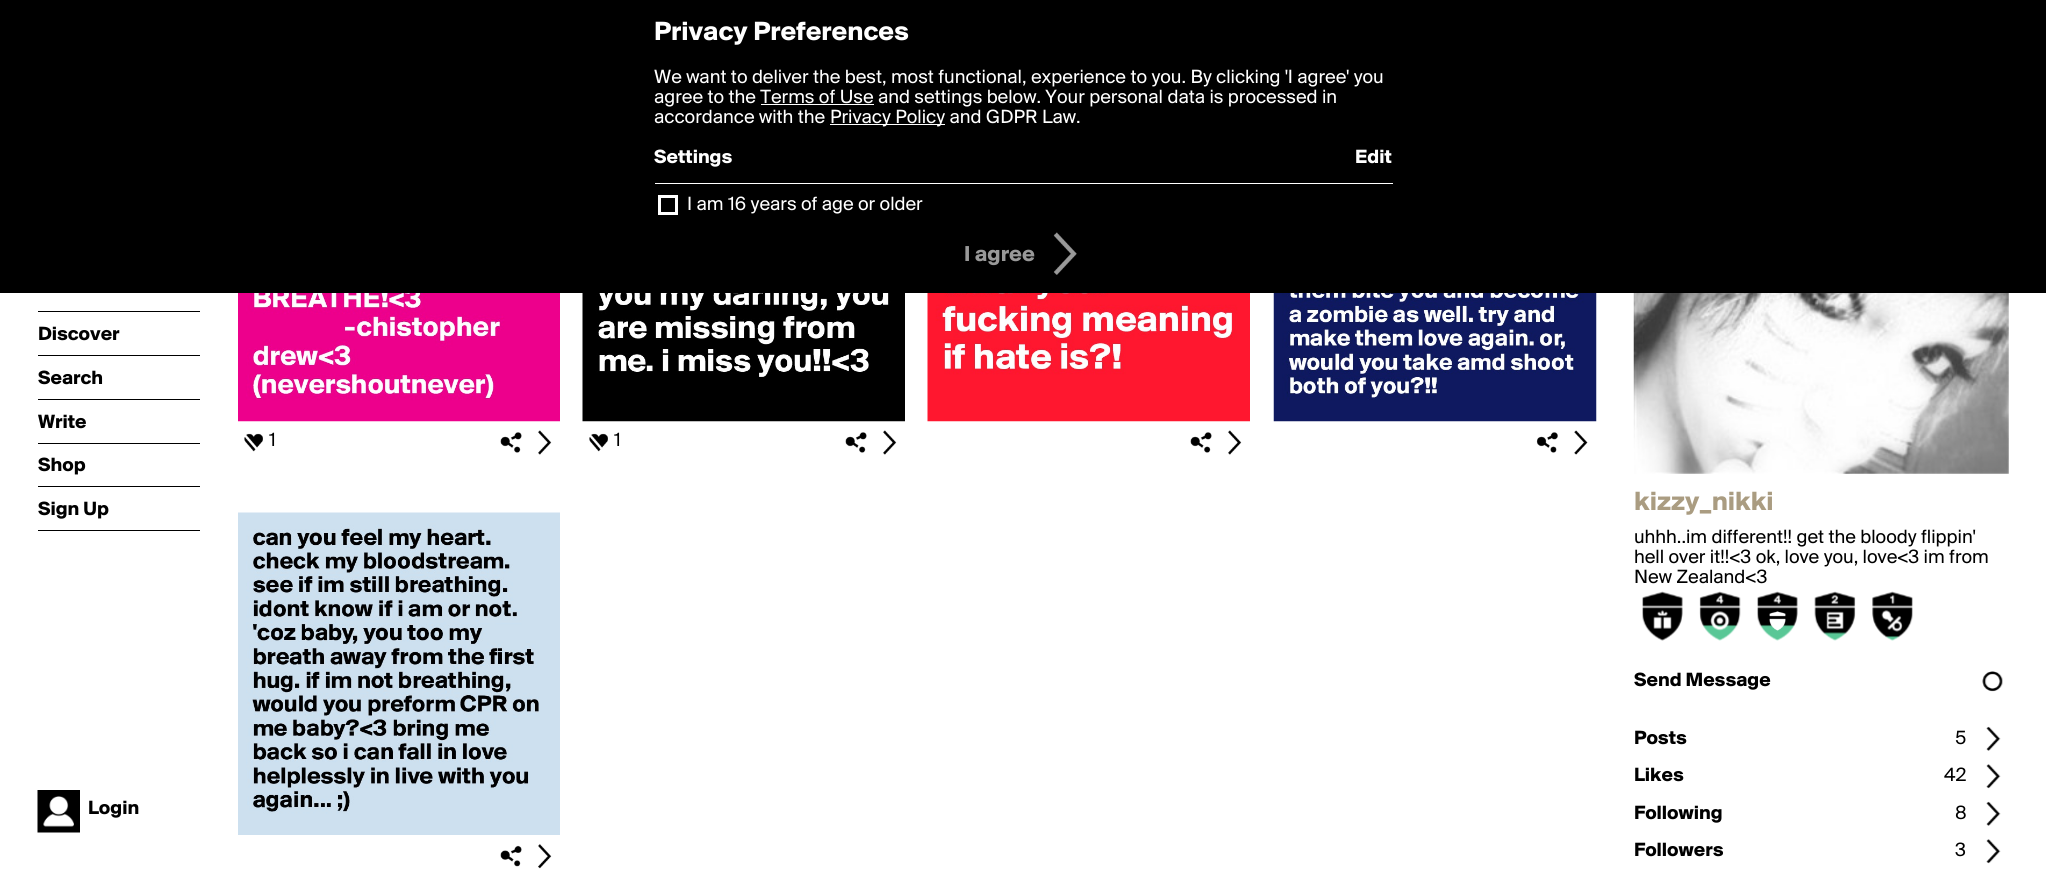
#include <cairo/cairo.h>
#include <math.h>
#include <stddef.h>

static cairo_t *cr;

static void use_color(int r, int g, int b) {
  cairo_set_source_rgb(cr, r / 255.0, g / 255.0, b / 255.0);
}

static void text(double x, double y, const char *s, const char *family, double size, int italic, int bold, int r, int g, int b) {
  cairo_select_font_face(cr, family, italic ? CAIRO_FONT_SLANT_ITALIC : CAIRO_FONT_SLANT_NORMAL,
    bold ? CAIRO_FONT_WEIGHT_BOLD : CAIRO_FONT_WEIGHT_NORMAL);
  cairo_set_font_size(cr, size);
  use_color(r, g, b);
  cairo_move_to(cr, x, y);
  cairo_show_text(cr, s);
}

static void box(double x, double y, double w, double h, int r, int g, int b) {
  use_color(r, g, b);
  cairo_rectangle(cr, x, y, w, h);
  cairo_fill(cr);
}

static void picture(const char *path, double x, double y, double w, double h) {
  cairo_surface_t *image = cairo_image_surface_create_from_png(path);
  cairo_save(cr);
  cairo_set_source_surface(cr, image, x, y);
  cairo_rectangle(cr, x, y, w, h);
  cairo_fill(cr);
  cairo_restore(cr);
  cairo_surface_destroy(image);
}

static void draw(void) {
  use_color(255, 255, 255);
  cairo_paint(cr);
  box(0, 0, 2046, 293, 0, 0, 0);
  box(761, 104, 113, 1, 255, 255, 255);
  box(830, 124, 115, 1, 255, 255, 255);
  box(655, 183, 738, 1, 255, 255, 255);
  cairo_rectangle(cr, 659.5, 196.5, 17, 17);
  cairo_set_line_width(cr, 3);
  cairo_stroke(cr);
  picture("img_01.png", 1053, 232, 24, 43);
  box(38, 311, 162, 1, 0, 0, 0);
  box(38, 355, 162, 1, 0, 0, 0);
  box(38, 399, 162, 1, 0, 0, 0);
  box(38, 443, 162, 1, 0, 0, 0);
  box(38, 486, 162, 1, 0, 0, 0);
  box(38, 530, 162, 1, 0, 0, 0);
  picture("img_02.png", 37, 790, 43, 43);
  picture("img_03.png", 238, 293, 322, 129);
  picture("img_04.png", 244, 433, 19, 19);
  picture("img_05.png", 500, 432, 22, 21);
  picture("img_06.png", 538, 430, 14, 25);
  picture("img_07.png", 582, 293, 323, 129);
  picture("img_08.png", 589, 433, 19, 19);
  picture("img_09.png", 845, 432, 22, 21);
  picture("img_10.png", 883, 430, 14, 25);
  picture("img_11.png", 927, 293, 323, 129);
  picture("img_12.png", 1190, 432, 22, 21);
  picture("img_10.png", 1228, 430, 14, 25);
  picture("img_13.png", 1273, 293, 324, 129);
  picture("img_14.png", 1536, 432, 22, 21);
  picture("img_15.png", 1574, 430, 14, 25);
  picture("img_16.png", 238, 512, 322, 323);
  picture("img_17.png", 500, 845, 22, 22);
  picture("img_18.png", 538, 844, 14, 25);
  picture("img_19.png", 1633, 293, 376, 181);
  picture("img_20.png", 1642, 591, 41, 50);
  picture("img_21.png", 1653, 610, 19, 19);
  picture("img_22.png", 1699, 591, 42, 50);
  picture("img_23.png", 1710, 611, 20, 20);
  picture("img_24.png", 1757, 591, 41, 50);
  picture("img_25.png", 1769, 611, 17, 20);
  picture("img_26.png", 1814, 591, 42, 50);
  picture("img_27.png", 1826, 611, 18, 19);
  picture("img_28.png", 1872, 591, 41, 50);
  picture("img_29.png", 1881, 610, 22, 22);
  picture("img_30.png", 1982, 671, 21, 21);
  picture("img_31.png", 1986, 726, 15, 25);
  picture("img_32.png", 1986, 764, 15, 25);
  picture("img_31.png", 1986, 801, 15, 25);
  picture("img_32.png", 1986, 839, 15, 25);
  text(654, 40, "Privacy Preferences", "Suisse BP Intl", 27.5, 0, 1, 255, 255, 255);
  text(654, 83, "We want to deliver the best, most functional, experience to you. By clicking 'I agree' you", "Suisse BP Intl", 20, 0, 0, 255, 255, 255);
  text(654, 103, "agree to the Terms of Use and settings below. Your personal data is processed in", "Suisse BP Intl", 20, 0, 0, 255, 255, 255);
  text(654, 123, "accordance with the", "Suisse BP Intl", 20, 0, 0, 255, 255, 255);
  text(830, 123, "Privacy Policy and GDPR Law.", "Suisse BP Intl", 20, 0, 0, 255, 255, 255);
  text(654, 163, "Settings", "Suisse BP Intl", 20, 0, 1, 255, 255, 255);
  text(1355, 163, "Edit", "Suisse BP Intl", 20, 0, 1, 255, 255, 255);
  text(687, 210, "I am 16 years of age or older", "Suisse BP Intl", 20, 0, 0, 255, 255, 255);
  text(964, 261, "I agree", "Suisse BP Intl", 22.5, 0, 1, 153, 153, 153);
  text(38, 340, "Discover", "Suisse BP Intl", 20, 0, 1, 0, 0, 0);
  text(38, 384, "Search", "Suisse BP Intl", 20, 0, 1, 0, 0, 0);
  text(38, 428, "Write", "Suisse BP Intl", 20, 0, 1, 0, 0, 0);
  text(38, 471, "Shop", "Suisse BP Intl", 20, 0, 1, 0, 0, 0);
  text(38, 515, "Sign Up", "Suisse BP Intl", 20, 0, 1, 0, 0, 0);
  text(88, 814, "Login", "Suisse BP Intl", 20, 0, 1, 0, 0, 0);
  text(269, 446, "1", "Suisse BP Intl", 20, 0, 0, 0, 0, 0);
  text(614, 446, "1", "Suisse BP Intl", 20, 0, 0, 0, 0, 0);
  text(1634, 510, "kizzy_nikki", "Suisse BP Intl", 27.5, 0, 1, 170, 156, 129);
  text(1634, 543, "uhhh..im different!! get the bloody flippin'", "Suisse BP Intl", 20, 0, 0, 0, 0, 0);
  text(1634, 563, "hell over it!!<3 ok, love you, love<3 im from", "Suisse BP Intl", 20, 0, 0, 0, 0, 0);
  text(1634, 583, "New Zealand<3", "Suisse BP Intl", 20, 0, 0, 0, 0, 0);
  text(1634, 686, "Send Message", "Suisse BP Intl", 20, 0, 1, 0, 0, 0);
  text(1634, 744, "Posts", "Suisse BP Intl", 20, 0, 1, 0, 0, 0);
  text(1955, 744, "5", "Suisse BP Intl", 20, 0, 0, 0, 0, 0);
  text(1634, 781, "Likes", "Suisse BP Intl", 20, 0, 1, 0, 0, 0);
  text(1944, 781, "42", "Suisse BP Intl", 20, 0, 0, 0, 0, 0);
  text(1634, 819, "Following", "Suisse BP Intl", 20, 0, 1, 0, 0, 0);
  text(1955, 819, "8", "Suisse BP Intl", 20, 0, 0, 0, 0, 0);
  text(1634, 856, "Followers", "Suisse BP Intl", 20, 0, 1, 0, 0, 0);
  text(1955, 856, "3", "Suisse BP Intl", 20, 0, 0, 0, 0, 0);
}

int main(void) {
  cairo_surface_t *surface = cairo_image_surface_create(CAIRO_FORMAT_RGB24, 2046, 869);
  cr = cairo_create(surface);
  cairo_font_options_t *options = cairo_font_options_create();
  cairo_font_options_set_hint_metrics(options, CAIRO_HINT_METRICS_OFF);
  cairo_font_options_set_hint_style(options, CAIRO_HINT_STYLE_NONE);
  cairo_set_font_options(cr, options);
  cairo_set_miter_limit(cr, 4);
  draw();
  cairo_surface_write_to_png(surface, "out.png");
  cairo_font_options_destroy(options);
  cairo_destroy(cr);
  cairo_surface_destroy(surface);
  return 0;
}
